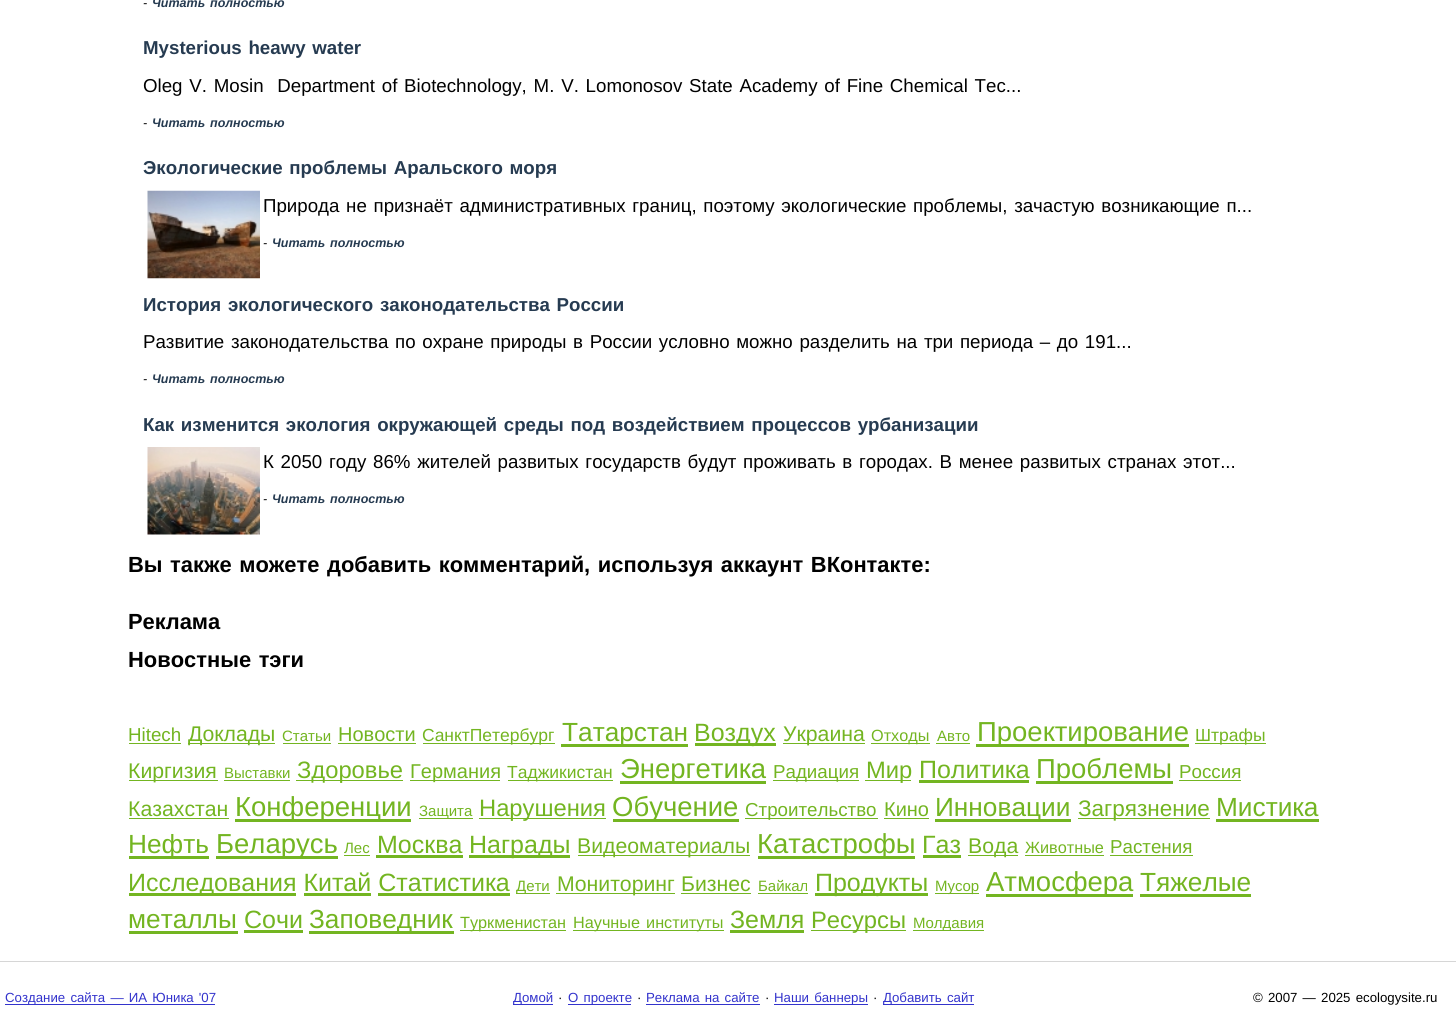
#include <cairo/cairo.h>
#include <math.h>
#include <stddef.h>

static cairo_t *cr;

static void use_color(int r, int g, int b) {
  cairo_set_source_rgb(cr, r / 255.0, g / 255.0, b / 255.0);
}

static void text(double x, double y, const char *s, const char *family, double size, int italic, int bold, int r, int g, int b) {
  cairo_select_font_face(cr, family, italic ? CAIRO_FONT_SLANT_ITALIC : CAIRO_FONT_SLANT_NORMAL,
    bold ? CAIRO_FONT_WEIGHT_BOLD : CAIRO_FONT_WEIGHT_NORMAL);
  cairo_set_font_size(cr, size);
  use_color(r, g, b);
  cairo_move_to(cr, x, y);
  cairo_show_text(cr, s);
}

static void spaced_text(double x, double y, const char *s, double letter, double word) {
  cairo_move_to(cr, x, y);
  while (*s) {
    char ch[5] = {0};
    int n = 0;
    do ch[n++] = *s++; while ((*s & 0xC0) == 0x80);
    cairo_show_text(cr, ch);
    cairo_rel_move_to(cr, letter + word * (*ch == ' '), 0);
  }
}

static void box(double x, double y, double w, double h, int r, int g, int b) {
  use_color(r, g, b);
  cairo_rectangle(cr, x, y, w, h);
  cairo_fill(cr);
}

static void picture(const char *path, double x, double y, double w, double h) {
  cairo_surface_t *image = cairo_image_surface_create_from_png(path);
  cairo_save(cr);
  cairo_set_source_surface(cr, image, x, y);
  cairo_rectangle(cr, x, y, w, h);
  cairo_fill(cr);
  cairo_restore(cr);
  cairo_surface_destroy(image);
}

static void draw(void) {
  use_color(255, 255, 255);
  cairo_paint(cr);
  picture("img_01.png", 147, 190, 113, 89);
  picture("img_02.png", 147, 447, 113, 88);
  box(129, 743, 52, 1, 115, 181, 33);
  box(188, 743, 87, 1, 115, 181, 33);
  box(283, 743, 48, 1, 115, 181, 33);
  box(338, 743, 78, 1, 115, 181, 33);
  box(423, 743, 132, 1, 115, 181, 33);
  box(561, 744, 127, 3, 115, 181, 33);
  box(695, 743, 81, 3, 115, 181, 33);
  box(783, 743, 82, 1, 115, 181, 33);
  box(871, 743, 59, 1, 115, 181, 33);
  box(936, 743, 34, 1, 115, 181, 33);
  box(976, 744, 213, 3, 115, 181, 33);
  box(1195, 743, 71, 1, 115, 181, 33);
  box(129, 780, 89, 1, 115, 181, 33);
  box(224, 780, 66, 1, 115, 181, 33);
  box(296, 780, 107, 1, 115, 181, 33);
  box(410, 780, 90, 1, 115, 181, 33);
  box(508, 780, 105, 1, 115, 181, 33);
  box(620, 781, 146, 3, 115, 181, 33);
  box(773, 780, 86, 1, 115, 181, 33);
  box(865, 780, 46, 1, 115, 181, 33);
  box(919, 780, 110, 3, 115, 181, 33);
  box(1036, 781, 137, 3, 115, 181, 33);
  box(1179, 780, 62, 1, 115, 181, 33);
  box(129, 818, 100, 1, 115, 181, 33);
  box(235, 819, 176, 3, 115, 181, 33);
  box(419, 818, 54, 1, 115, 181, 33);
  box(479, 818, 127, 1, 115, 181, 33);
  box(613, 819, 126, 3, 115, 181, 33);
  box(745, 818, 133, 1, 115, 181, 33);
  box(884, 818, 45, 1, 115, 181, 33);
  box(935, 819, 136, 3, 115, 181, 33);
  box(1078, 818, 132, 1, 115, 181, 33);
  box(1216, 819, 103, 3, 115, 181, 33);
  box(129, 856, 80, 3, 115, 181, 33);
  box(216, 856, 122, 3, 115, 181, 33);
  box(344, 855, 26, 1, 115, 181, 33);
  box(376, 855, 87, 3, 115, 181, 33);
  box(469, 855, 101, 3, 115, 181, 33);
  box(578, 855, 172, 1, 115, 181, 33);
  box(758, 856, 157, 3, 115, 181, 33);
  box(923, 855, 38, 3, 115, 181, 33);
  box(968, 855, 50, 1, 115, 181, 33);
  box(1025, 855, 79, 1, 115, 181, 33);
  box(1110, 855, 83, 1, 115, 181, 33);
  box(129, 893, 167, 3, 115, 181, 33);
  box(516, 893, 34, 1, 115, 181, 33);
  box(556, 893, 119, 1, 115, 181, 33);
  box(681, 893, 70, 1, 115, 181, 33);
  box(758, 893, 50, 1, 115, 181, 33);
  box(815, 893, 113, 3, 115, 181, 33);
  box(935, 893, 44, 1, 115, 181, 33);
  box(986, 894, 147, 3, 115, 181, 33);
  box(1140, 894, 111, 3, 115, 181, 33);
  box(304, 893, 67, 3, 115, 181, 33);
  box(378, 893, 132, 3, 115, 181, 33);
  box(129, 931, 109, 3, 115, 181, 33);
  box(244, 930, 59, 3, 115, 181, 33);
  box(309, 931, 145, 3, 115, 181, 33);
  box(460, 930, 106, 1, 115, 181, 33);
  box(573, 930, 151, 1, 115, 181, 33);
  box(730, 930, 74, 3, 115, 181, 33);
  box(811, 930, 95, 1, 115, 181, 33);
  box(913, 930, 71, 1, 115, 181, 33);
  box(0, 961, 1456, 1, 214, 214, 214);
  box(5, 1004, 210, 1, 51, 51, 204);
  box(513, 1004, 40, 1, 51, 51, 204);
  box(568, 1004, 63, 1, 51, 51, 204);
  box(646, 1004, 114, 1, 51, 51, 204);
  box(774, 1004, 94, 1, 51, 51, 204);
  box(883, 1004, 91, 1, 51, 51, 204);
  text(143, 7, "-", "Liberation Sans", 12.5, 1, 0, 0, 0, 0);
  cairo_select_font_face(cr, "Liberation Sans", CAIRO_FONT_SLANT_ITALIC, CAIRO_FONT_WEIGHT_BOLD);
  use_color(38, 59, 81);
  spaced_text(152, 7, "Читать полностью", 0, 1.5);
  cairo_select_font_face(cr, "Liberation Sans", CAIRO_FONT_SLANT_NORMAL, CAIRO_FONT_WEIGHT_BOLD);
  cairo_set_font_size(cr, 18.7);
  spaced_text(143, 54, "Mysterious heawy water", 0, 1.5);
  cairo_select_font_face(cr, "Liberation Sans", CAIRO_FONT_SLANT_NORMAL, CAIRO_FONT_WEIGHT_NORMAL);
  use_color(0, 0, 0);
  spaced_text(143, 92, "Oleg V. Mosin  Department of Biotechnology, M. V. Lomonosov State Academy of Fine Chemical Tec...", 0, 1.6);
  text(143, 127, "-", "Liberation Sans", 12.5, 1, 0, 0, 0, 0);
  cairo_select_font_face(cr, "Liberation Sans", CAIRO_FONT_SLANT_ITALIC, CAIRO_FONT_WEIGHT_BOLD);
  use_color(38, 59, 81);
  spaced_text(152, 127, "Читать полностью", 0, 1.5);
  cairo_select_font_face(cr, "Liberation Sans", CAIRO_FONT_SLANT_NORMAL, CAIRO_FONT_WEIGHT_BOLD);
  cairo_set_font_size(cr, 18.7);
  spaced_text(143, 174, "Экологические проблемы Аральского моря", 0, 1.5);
  cairo_select_font_face(cr, "Liberation Sans", CAIRO_FONT_SLANT_NORMAL, CAIRO_FONT_WEIGHT_NORMAL);
  use_color(0, 0, 0);
  spaced_text(263, 212, "Природа не признаёт административных границ, поэтому экологические", 0, 1.5);
  spaced_text(913, 212, "проблемы, зачастую возникающие п...", 0, 1.5);
  text(263, 247, "-", "Liberation Sans", 12.5, 1, 0, 0, 0, 0);
  cairo_select_font_face(cr, "Liberation Sans", CAIRO_FONT_SLANT_ITALIC, CAIRO_FONT_WEIGHT_BOLD);
  use_color(38, 59, 81);
  spaced_text(272, 247, "Читать полностью", 0, 1.5);
  cairo_select_font_face(cr, "Liberation Sans", CAIRO_FONT_SLANT_NORMAL, CAIRO_FONT_WEIGHT_BOLD);
  cairo_set_font_size(cr, 18.7);
  spaced_text(143, 311, "История экологического законодательства России", 0, 1.5);
  cairo_select_font_face(cr, "Liberation Sans", CAIRO_FONT_SLANT_NORMAL, CAIRO_FONT_WEIGHT_NORMAL);
  use_color(0, 0, 0);
  spaced_text(143, 348, "Развитие законодательства по охране природы в России условно можно разделить на три периода – до 191...", 0, 1.5);
  text(143, 383, "-", "Liberation Sans", 12.5, 1, 0, 0, 0, 0);
  cairo_select_font_face(cr, "Liberation Sans", CAIRO_FONT_SLANT_ITALIC, CAIRO_FONT_WEIGHT_BOLD);
  use_color(38, 59, 81);
  spaced_text(152, 383, "Читать полностью", 0, 1.5);
  cairo_select_font_face(cr, "Liberation Sans", CAIRO_FONT_SLANT_NORMAL, CAIRO_FONT_WEIGHT_BOLD);
  cairo_set_font_size(cr, 18.7);
  spaced_text(143, 431, "Как изменится экология окружающей среды под воздействием процессов урбанизации", 0, 1.5);
  cairo_select_font_face(cr, "Liberation Sans", CAIRO_FONT_SLANT_NORMAL, CAIRO_FONT_WEIGHT_NORMAL);
  use_color(0, 0, 0);
  spaced_text(263, 468, "К 2050 году 86% жителей развитых государств будут проживать в городах. В менее развитых странах этот...", 0, 1.5);
  text(263, 503, "-", "Liberation Sans", 12.5, 1, 0, 0, 0, 0);
  cairo_select_font_face(cr, "Liberation Sans", CAIRO_FONT_SLANT_ITALIC, CAIRO_FONT_WEIGHT_BOLD);
  use_color(38, 59, 81);
  spaced_text(272, 503, "Читать полностью", 0, 1.5);
  cairo_select_font_face(cr, "Liberation Sans", CAIRO_FONT_SLANT_NORMAL, CAIRO_FONT_WEIGHT_BOLD);
  cairo_set_font_size(cr, 21.9);
  use_color(0, 0, 0);
  spaced_text(128, 572, "Вы также можете добавить комментарий, используя аккаунт ВКонтакте:", 0, 1.5);
  text(128, 629, "Реклама", "Liberation Sans", 21.9, 0, 1, 0, 0, 0);
  spaced_text(128, 667, "Новостные тэги", 0, 1.5);
  text(128, 741, "Hitech", "Liberation Sans", 18.75, 0, 0, 115, 181, 33);
  text(188, 741, "Доклады", "Liberation Sans", 21.25, 0, 0, 115, 181, 33);
  text(282, 741, "Статьи", "Liberation Sans", 15, 0, 0, 115, 181, 33);
  text(338, 741, "Новости", "Liberation Sans", 20, 0, 0, 115, 181, 33);
  text(422, 741, "СанктПетербург", "Liberation Sans", 17.5, 0, 0, 115, 181, 33);
  text(562, 741, "Татарстан", "Liberation Sans", 26.25, 0, 0, 115, 181, 33);
  text(694, 741, "Воздух", "Liberation Sans", 25, 0, 0, 115, 181, 33);
  text(783, 741, "Украина", "Liberation Sans", 21.25, 0, 0, 115, 181, 33);
  text(871, 741, "Отходы", "Liberation Sans", 16.25, 0, 0, 115, 181, 33);
  text(937, 741, "Авто", "Liberation Sans", 15, 0, 0, 115, 181, 33);
  text(977, 741, "Проектирование", "Liberation Sans", 27.5, 0, 0, 115, 181, 33);
  text(1195, 741, "Штрафы", "Liberation Sans", 17.5, 0, 0, 115, 181, 33);
  text(128, 778, "Киргизия", "Liberation Sans", 21.25, 0, 0, 115, 181, 33);
  text(224, 778, "Выставки", "Liberation Sans", 15, 0, 0, 115, 181, 33);
  text(297, 778, "Здоровье", "Liberation Sans", 23.75, 0, 0, 115, 181, 33);
  text(410, 778, "Германия", "Liberation Sans", 20, 0, 0, 115, 181, 33);
  text(507, 778, "Таджикистан", "Liberation Sans", 17.5, 0, 0, 115, 181, 33);
  text(620, 778, "Энергетика", "Liberation Sans", 27.5, 0, 0, 115, 181, 33);
  text(773, 778, "Радиация", "Liberation Sans", 18.75, 0, 0, 115, 181, 33);
  text(866, 778, "Мир", "Liberation Sans", 23.75, 0, 0, 115, 181, 33);
  text(919, 778, "Политика", "Liberation Sans", 25, 0, 0, 115, 181, 33);
  text(1036, 778, "Проблемы", "Liberation Sans", 27.5, 0, 0, 115, 181, 33);
  text(1179, 778, "Россия", "Liberation Sans", 18.75, 0, 0, 115, 181, 33);
  text(128, 816, "Казахстан", "Liberation Sans", 21.25, 0, 0, 115, 181, 33);
  text(235, 816, "Конференции", "Liberation Sans", 27.5, 0, 0, 115, 181, 33);
  text(419, 816, "Защита", "Liberation Sans", 15, 0, 0, 115, 181, 33);
  text(479, 816, "Нарушения", "Liberation Sans", 23.75, 0, 0, 115, 181, 33);
  text(612, 816, "Обучение", "Liberation Sans", 27.5, 0, 0, 115, 181, 33);
  text(745, 816, "Строительство", "Liberation Sans", 18.75, 0, 0, 115, 181, 33);
  text(884, 816, "Кино", "Liberation Sans", 20, 0, 0, 115, 181, 33);
  text(935, 816, "Инновации", "Liberation Sans", 26.25, 0, 0, 115, 181, 33);
  text(1078, 816, "Загрязнение", "Liberation Sans", 22.5, 0, 0, 115, 181, 33);
  text(1216, 816, "Мистика", "Liberation Sans", 26.25, 0, 0, 115, 181, 33);
  text(128, 853, "Нефть", "Liberation Sans", 26.25, 0, 0, 115, 181, 33);
  text(216, 853, "Беларусь", "Liberation Sans", 27.5, 0, 0, 115, 181, 33);
  text(344, 853, "Лес", "Liberation Sans", 15, 0, 0, 115, 181, 33);
  text(377, 853, "Москва", "Liberation Sans", 25, 0, 0, 115, 181, 33);
  text(469, 853, "Награды", "Liberation Sans", 25, 0, 0, 115, 181, 33);
  text(577, 853, "Видеоматериалы", "Liberation Sans", 21.25, 0, 0, 115, 181, 33);
  text(757, 853, "Катастрофы", "Liberation Sans", 27.5, 0, 0, 115, 181, 33);
  text(922, 853, "Газ", "Liberation Sans", 25, 0, 0, 115, 181, 33);
  text(968, 853, "Вода", "Liberation Sans", 21.25, 0, 0, 115, 181, 33);
  text(1025, 853, "Животные", "Liberation Sans", 16.25, 0, 0, 115, 181, 33);
  text(1110, 853, "Растения", "Liberation Sans", 18.75, 0, 0, 115, 181, 33);
  text(128, 891, "Исследования Китай Статистика", "Liberation Sans", 25, 0, 0, 115, 181, 33);
  text(516, 891, "Дети", "Liberation Sans", 15, 0, 0, 115, 181, 33);
  text(557, 891, "Мониторинг", "Liberation Sans", 21.25, 0, 0, 115, 181, 33);
  text(681, 891, "Бизнес", "Liberation Sans", 21.25, 0, 0, 115, 181, 33);
  text(758, 891, "Байкал", "Liberation Sans", 15, 0, 0, 115, 181, 33);
  text(815, 891, "Продукты", "Liberation Sans", 25, 0, 0, 115, 181, 33);
  text(935, 891, "Мусор", "Liberation Sans", 15, 0, 0, 115, 181, 33);
  text(986, 891, "Атмосфера", "Liberation Sans", 27.5, 0, 0, 115, 181, 33);
  text(1140, 891, "Тяжелые", "Liberation Sans", 26.25, 0, 0, 115, 181, 33);
  text(128, 928, "металлы", "Liberation Sans", 26.25, 0, 0, 115, 181, 33);
  text(244, 928, "Сочи", "Liberation Sans", 25, 0, 0, 115, 181, 33);
  text(309, 928, "Заповедник", "Liberation Sans", 26.25, 0, 0, 115, 181, 33);
  text(460, 928, "Туркменистан", "Liberation Sans", 16.25, 0, 0, 115, 181, 33);
  spaced_text(573, 928, "Научные институты", 0, 1.5);
  text(730, 928, "Земля", "Liberation Sans", 25, 0, 0, 115, 181, 33);
  text(811, 928, "Ресурсы", "Liberation Sans", 23.75, 0, 0, 115, 181, 33);
  text(913, 928, "Молдавия", "Liberation Sans", 15, 0, 0, 115, 181, 33);
  cairo_set_font_size(cr, 13.25);
  use_color(51, 51, 204);
  spaced_text(5, 1002, "Создание сайта — ИА Юника '07", 0, 1.5);
  text(513, 1002, "Домой", "Liberation Sans", 13.25, 0, 0, 51, 51, 204);
  text(558, 1002, "·", "Liberation Sans", 13.25, 0, 0, 0, 0, 0);
  use_color(51, 51, 204);
  spaced_text(568, 1002, "О проекте", 0, 1.5);
  text(637, 1002, "·", "Liberation Sans", 13.25, 0, 0, 0, 0, 0);
  use_color(51, 51, 204);
  spaced_text(646, 1002, "Реклама на сайте", 0, 1.5);
  text(765, 1002, "·", "Liberation Sans", 13.25, 0, 0, 0, 0, 0);
  use_color(51, 51, 204);
  spaced_text(774, 1002, "Наши баннеры", 0, 1.5);
  text(873, 1002, "·", "Liberation Sans", 13.25, 0, 0, 0, 0, 0);
  use_color(51, 51, 204);
  spaced_text(883, 1002, "Добавить сайт", 0, 1.5);
  use_color(0, 0, 0);
  spaced_text(1253, 1002, "© 2007 — 2025 ecologysite.ru", 0, 1.5);
}

int main(void) {
  cairo_surface_t *surface = cairo_image_surface_create(CAIRO_FORMAT_RGB24, 1456, 1020);
  cr = cairo_create(surface);
  cairo_font_options_t *options = cairo_font_options_create();
  cairo_font_options_set_hint_metrics(options, CAIRO_HINT_METRICS_OFF);
  cairo_font_options_set_hint_style(options, CAIRO_HINT_STYLE_NONE);
  cairo_set_font_options(cr, options);
  cairo_set_miter_limit(cr, 4);
  draw();
  cairo_surface_write_to_png(surface, "out.png");
  cairo_font_options_destroy(options);
  cairo_destroy(cr);
  cairo_surface_destroy(surface);
  return 0;
}
